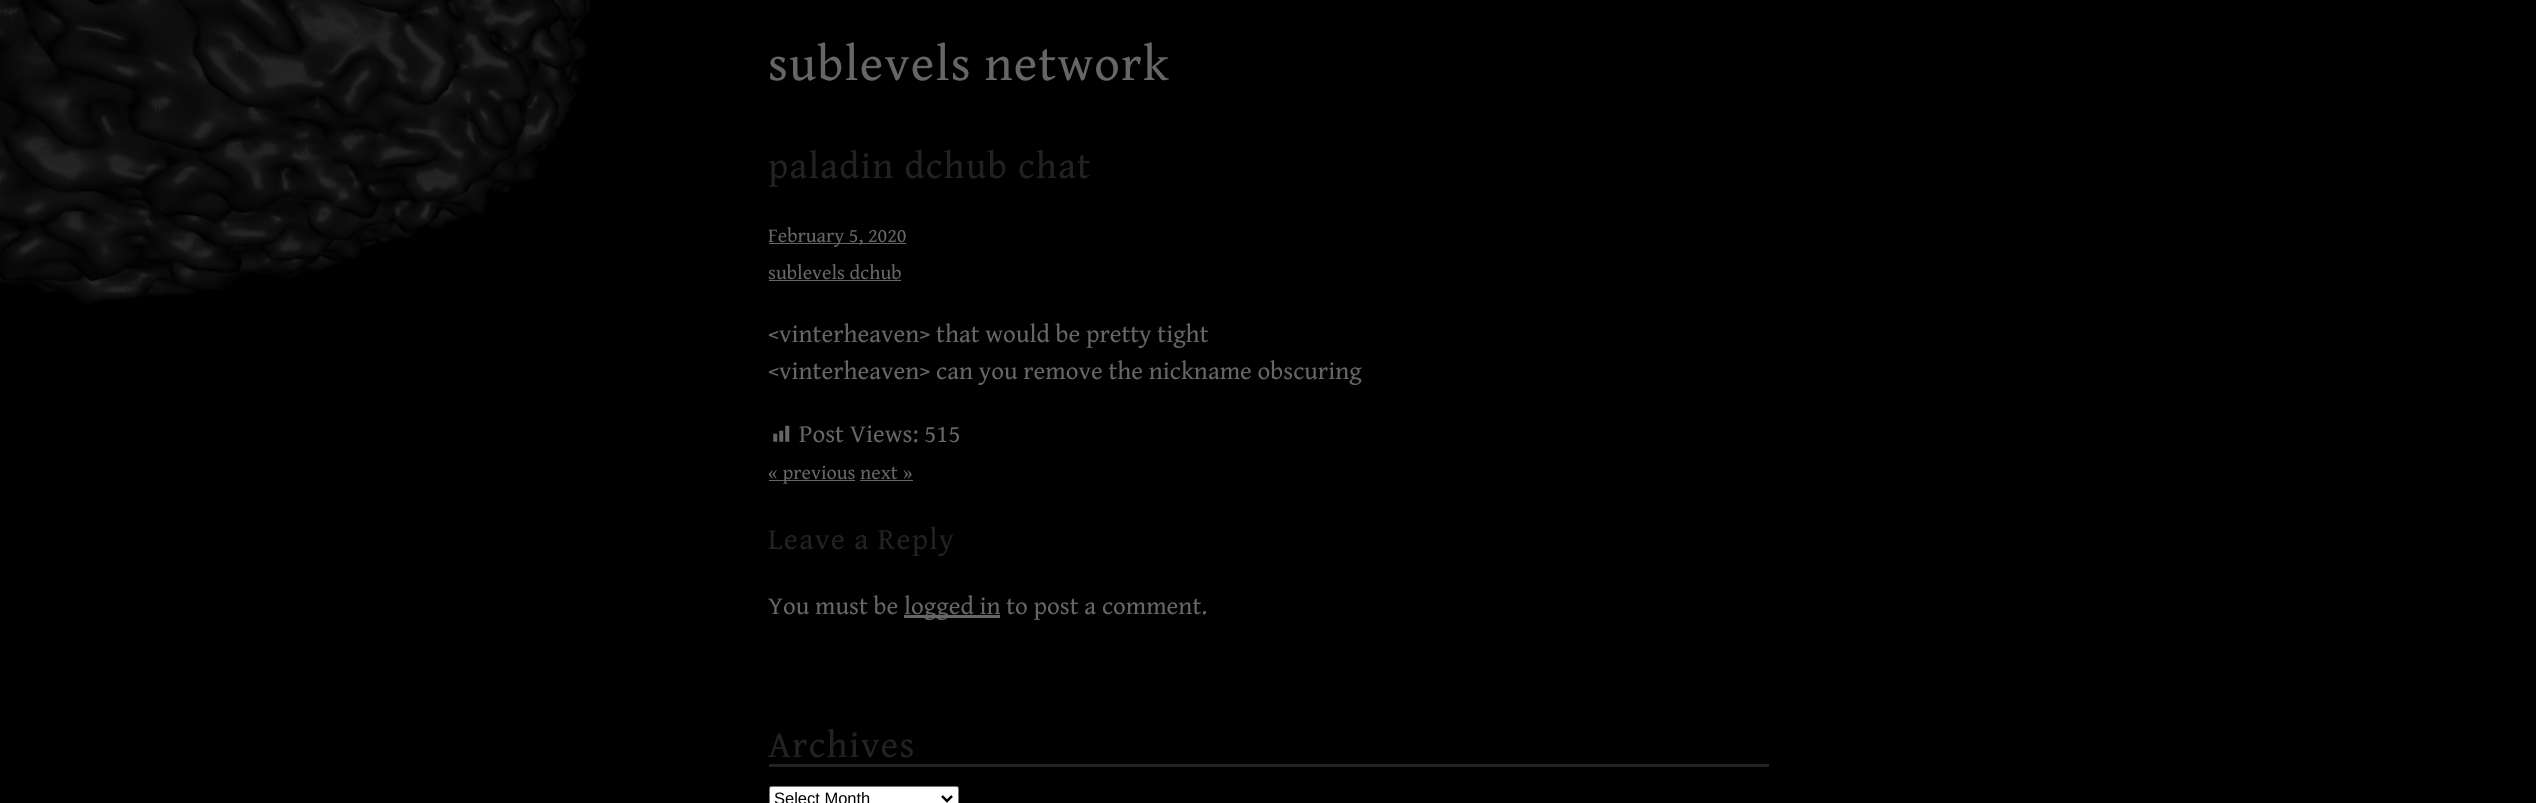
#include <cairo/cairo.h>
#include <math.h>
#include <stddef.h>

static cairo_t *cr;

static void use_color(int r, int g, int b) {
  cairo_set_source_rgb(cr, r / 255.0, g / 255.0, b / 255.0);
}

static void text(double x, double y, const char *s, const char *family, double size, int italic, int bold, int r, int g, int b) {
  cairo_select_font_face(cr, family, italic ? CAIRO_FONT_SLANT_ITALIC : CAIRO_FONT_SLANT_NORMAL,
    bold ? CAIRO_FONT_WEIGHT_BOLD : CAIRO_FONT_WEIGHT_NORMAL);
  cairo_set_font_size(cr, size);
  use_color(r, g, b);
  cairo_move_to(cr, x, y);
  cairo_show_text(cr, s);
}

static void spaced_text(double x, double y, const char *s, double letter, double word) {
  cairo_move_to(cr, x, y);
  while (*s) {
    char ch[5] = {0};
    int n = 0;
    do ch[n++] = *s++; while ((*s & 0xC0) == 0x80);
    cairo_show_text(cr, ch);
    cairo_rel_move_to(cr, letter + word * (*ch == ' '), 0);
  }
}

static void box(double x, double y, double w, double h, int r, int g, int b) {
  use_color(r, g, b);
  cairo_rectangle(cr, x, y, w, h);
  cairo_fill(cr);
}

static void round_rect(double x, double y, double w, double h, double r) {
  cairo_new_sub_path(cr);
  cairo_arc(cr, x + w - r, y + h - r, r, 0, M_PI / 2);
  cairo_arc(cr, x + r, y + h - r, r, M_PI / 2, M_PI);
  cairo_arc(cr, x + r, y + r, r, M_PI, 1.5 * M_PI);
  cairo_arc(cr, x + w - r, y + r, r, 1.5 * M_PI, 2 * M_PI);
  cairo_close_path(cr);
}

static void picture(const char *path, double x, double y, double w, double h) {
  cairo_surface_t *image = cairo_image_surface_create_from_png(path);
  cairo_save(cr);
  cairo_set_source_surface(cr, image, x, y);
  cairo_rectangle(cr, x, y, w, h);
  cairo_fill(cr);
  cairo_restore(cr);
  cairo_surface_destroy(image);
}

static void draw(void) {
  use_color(0, 0, 0);
  cairo_paint(cr);
  picture("img_01.png", 0, 0, 590, 304);
  box(769, 243, 137, 1, 102, 102, 102);
  box(769, 280, 132, 1, 102, 102, 102);
  picture("img_02.png", 773, 425, 17, 17);
  box(769, 480, 86, 1, 102, 102, 102);
  box(860, 480, 53, 1, 102, 102, 102);
  box(904, 615, 96, 3, 102, 102, 102);
  box(769, 764, 1000, 3, 34, 34, 34);
  use_color(255, 255, 255);
  round_rect(769.5, 786.5, 189, 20, 2);
  cairo_fill_preserve(cr);
  use_color(118, 118, 118);
  cairo_set_line_width(cr, 1);
  cairo_stroke(cr);
  cairo_new_path(cr);
  cairo_move_to(cr, 942, 796);
  cairo_line_to(cr, 947, 801);
  cairo_line_to(cr, 952, 796);
  use_color(0, 0, 0);
  cairo_set_line_width(cr, 2.5);
  cairo_stroke(cr);
  cairo_select_font_face(cr, "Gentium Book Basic", CAIRO_FONT_SLANT_NORMAL, CAIRO_FONT_WEIGHT_NORMAL);
  cairo_set_font_size(cr, 50);
  use_color(102, 102, 102);
  spaced_text(768, 80, "sublevels network", 1.25, 0);
  cairo_set_font_size(cr, 37.5);
  use_color(34, 34, 34);
  spaced_text(768, 178, "paladin dchub chat", 1.25, 0);
  text(768, 242, "February 5, 2020", "Gentium Book Basic", 20, 0, 0, 102, 102, 102);
  text(768, 279, "sublevels dchub", "Gentium Book Basic", 20, 0, 0, 102, 102, 102);
  text(768, 342, "<vinterheaven> that would be pretty tight", "Gentium Book Basic", 25, 0, 0, 102, 102, 102);
  text(768, 379, "<vinterheaven> can you remove the nickname obscuring", "Gentium Book Basic", 25, 0, 0, 102, 102, 102);
  text(799, 442, "Post Views: 515", "Gentium Book Basic", 25, 0, 0, 102, 102, 102);
  text(768, 479, "« previous next »", "Gentium Book Basic", 20, 0, 0, 102, 102, 102);
  cairo_set_font_size(cr, 30);
  use_color(34, 34, 34);
  spaced_text(768, 549, "Leave a Reply", 1.25, 0);
  text(768, 614, "You must be", "Gentium Book Basic", 25, 0, 0, 102, 102, 102);
  text(904, 614, "logged in to post a comment.", "Gentium Book Basic", 25, 0, 0, 102, 102, 102);
  cairo_set_font_size(cr, 37.5);
  use_color(34, 34, 34);
  spaced_text(768, 757, "Archives", 1.25, 0);
  text(774, 804, "Select Month", "Liberation Sans", 16.5, 0, 0, 0, 0, 0);
}

int main(void) {
  cairo_surface_t *surface = cairo_image_surface_create(CAIRO_FORMAT_RGB24, 2536, 803);
  cr = cairo_create(surface);
  cairo_font_options_t *options = cairo_font_options_create();
  cairo_font_options_set_hint_metrics(options, CAIRO_HINT_METRICS_OFF);
  cairo_font_options_set_hint_style(options, CAIRO_HINT_STYLE_NONE);
  cairo_set_font_options(cr, options);
  cairo_set_miter_limit(cr, 4);
  draw();
  cairo_surface_write_to_png(surface, "out.png");
  cairo_font_options_destroy(options);
  cairo_destroy(cr);
  cairo_surface_destroy(surface);
  return 0;
}
